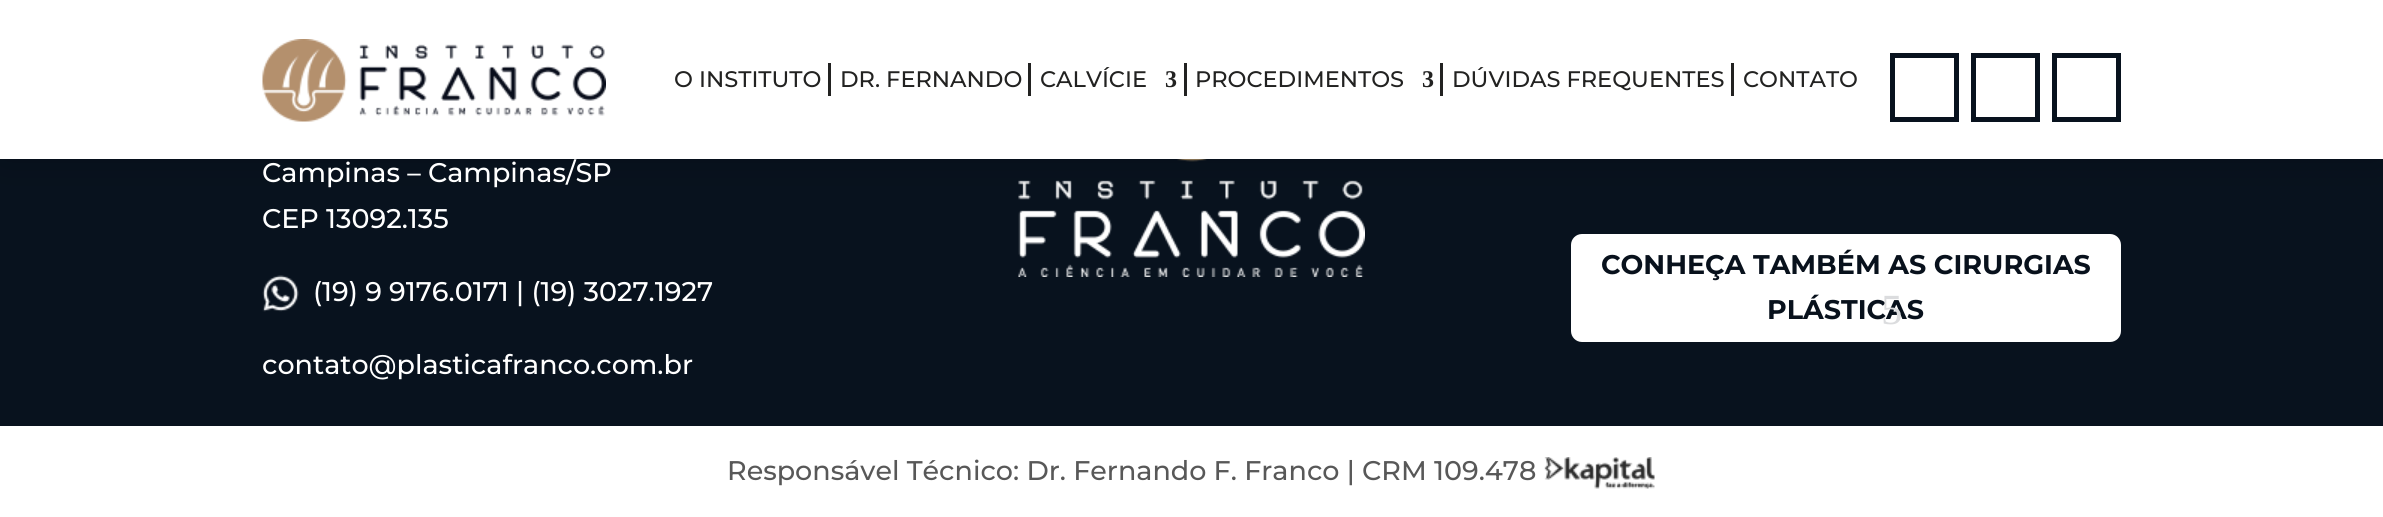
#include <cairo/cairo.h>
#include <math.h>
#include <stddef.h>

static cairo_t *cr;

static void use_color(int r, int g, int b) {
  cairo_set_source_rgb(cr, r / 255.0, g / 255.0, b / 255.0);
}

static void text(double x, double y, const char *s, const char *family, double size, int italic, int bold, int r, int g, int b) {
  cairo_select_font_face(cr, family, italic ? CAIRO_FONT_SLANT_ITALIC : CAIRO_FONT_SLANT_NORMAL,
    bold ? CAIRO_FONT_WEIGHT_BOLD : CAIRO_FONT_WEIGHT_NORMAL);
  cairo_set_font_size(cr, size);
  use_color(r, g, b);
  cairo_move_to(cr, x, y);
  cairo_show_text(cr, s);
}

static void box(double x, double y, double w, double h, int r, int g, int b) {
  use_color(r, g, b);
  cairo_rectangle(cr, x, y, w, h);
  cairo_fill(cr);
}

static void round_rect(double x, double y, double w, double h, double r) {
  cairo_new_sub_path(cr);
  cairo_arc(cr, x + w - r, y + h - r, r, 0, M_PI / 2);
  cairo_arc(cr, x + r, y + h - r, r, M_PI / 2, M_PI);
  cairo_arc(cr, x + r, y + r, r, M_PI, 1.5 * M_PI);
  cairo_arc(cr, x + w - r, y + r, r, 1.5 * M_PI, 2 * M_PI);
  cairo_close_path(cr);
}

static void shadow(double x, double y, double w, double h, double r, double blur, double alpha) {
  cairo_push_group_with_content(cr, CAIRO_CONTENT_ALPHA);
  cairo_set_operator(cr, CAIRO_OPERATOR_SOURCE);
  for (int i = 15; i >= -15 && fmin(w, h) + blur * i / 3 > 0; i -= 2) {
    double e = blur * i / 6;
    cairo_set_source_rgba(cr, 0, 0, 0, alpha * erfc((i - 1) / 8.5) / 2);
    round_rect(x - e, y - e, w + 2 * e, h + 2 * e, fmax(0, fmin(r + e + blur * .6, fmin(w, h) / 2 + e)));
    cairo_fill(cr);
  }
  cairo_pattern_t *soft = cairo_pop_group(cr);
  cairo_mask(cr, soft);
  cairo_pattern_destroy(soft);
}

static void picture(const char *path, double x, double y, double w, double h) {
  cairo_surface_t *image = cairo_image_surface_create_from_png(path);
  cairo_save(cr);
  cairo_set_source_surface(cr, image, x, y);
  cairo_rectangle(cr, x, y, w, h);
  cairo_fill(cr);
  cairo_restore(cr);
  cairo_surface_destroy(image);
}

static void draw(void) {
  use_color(255, 255, 255);
  cairo_paint(cr);
  box(0, 159, 2383, 267, 8, 18, 30);
  picture("img_03.png", 1018, 159, 347, 118);
  use_color(0, 0, 0);
  shadow(0, 0, 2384, 159, 0, 22.5, 0.19);
  box(0, 0, 2383, 159, 255, 255, 255);
  picture("img_01.png", 262, 39, 344, 83);
  box(828, 63, 3, 33, 34, 34, 33);
  box(1028, 63, 3, 33, 34, 34, 33);
  box(1184, 63, 3, 33, 34, 34, 33);
  box(1440, 63, 3, 33, 34, 34, 33);
  box(1731, 63, 3, 33, 34, 34, 33);
  cairo_rectangle(cr, 1892.5, 55.5, 64, 64);
  use_color(8, 18, 30);
  cairo_set_line_width(cr, 5);
  cairo_stroke(cr);
  cairo_rectangle(cr, 1973.5, 55.5, 64, 64);
  cairo_stroke(cr);
  cairo_rectangle(cr, 2054.5, 55.5, 64, 64);
  cairo_stroke(cr);
  picture("img_02.png", 262, 275, 37, 37);
  use_color(255, 255, 255);
  round_rect(1571, 234, 550, 108, 11);
  cairo_fill(cr);
  picture("img_04.png", 1544, 457, 111, 32);
  text(674, 87, "O INSTITUTO", "Montserrat Thin", 22.5, 0, 0, 34, 34, 33);
  text(840, 87, "DR. FERNANDO", "Montserrat Thin", 22.5, 0, 0, 34, 34, 33);
  text(1040, 87, "CALVÍCIE", "Montserrat Thin", 22.5, 0, 0, 34, 34, 33);
  text(1165, 87, "3", "Liberation Serif", 24, 0, 1, 34, 34, 33);
  text(1195, 87, "PROCEDIMENTOS", "Montserrat Thin", 22.5, 0, 0, 34, 34, 33);
  text(1422, 87, "3", "Liberation Serif", 24, 0, 1, 34, 34, 33);
  text(1452, 87, "DÚVIDAS FREQUENTES", "Montserrat Thin", 22.5, 0, 0, 34, 34, 33);
  text(1743, 87, "CONTATO", "Montserrat Thin", 22.5, 0, 0, 34, 34, 33);
  text(262, 182, "Campinas – Campinas/SP", "Montserrat Thin", 27, 0, 0, 255, 255, 255);
  text(262, 228, "CEP 13092.135", "Montserrat Thin", 27, 0, 0, 255, 255, 255);
  text(313, 301, "(19) 9 9176.0171 | (19) 3027.1927", "Montserrat Thin", 27, 0, 0, 255, 255, 255);
  text(262, 374, "contato@plasticafranco.com.br", "Montserrat Thin", 27, 0, 0, 255, 255, 255);
  text(1601, 274, "CONHEÇA TAMBÉM AS CIRURGIAS", "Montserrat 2 Thin", 27, 0, 0, 8, 17, 28);
  text(1767, 319, "PLÁSTICAS", "Montserrat 2 Thin", 27, 0, 0, 8, 17, 28);
  text(1881, 324, "5", "Liberation Serif", 43, 0, 0, 219, 220, 222);
  text(727, 480, "Responsável Técnico: Dr. Fernando F. Franco | CRM 109.478", "Montserrat Thin", 27, 0, 0, 88, 88, 88);
}

int main(void) {
  cairo_surface_t *surface = cairo_image_surface_create(CAIRO_FORMAT_RGB24, 2383, 517);
  cr = cairo_create(surface);
  cairo_font_options_t *options = cairo_font_options_create();
  cairo_font_options_set_hint_metrics(options, CAIRO_HINT_METRICS_OFF);
  cairo_font_options_set_hint_style(options, CAIRO_HINT_STYLE_NONE);
  cairo_set_font_options(cr, options);
  cairo_set_miter_limit(cr, 4);
  draw();
  cairo_surface_write_to_png(surface, "out.png");
  cairo_font_options_destroy(options);
  cairo_destroy(cr);
  cairo_surface_destroy(surface);
  return 0;
}
